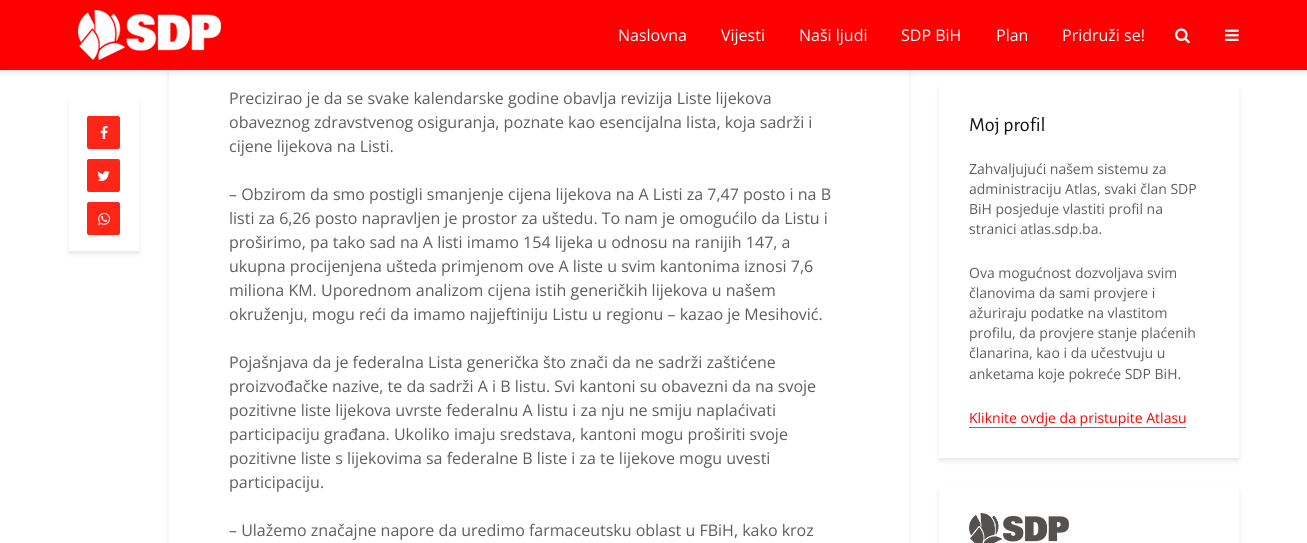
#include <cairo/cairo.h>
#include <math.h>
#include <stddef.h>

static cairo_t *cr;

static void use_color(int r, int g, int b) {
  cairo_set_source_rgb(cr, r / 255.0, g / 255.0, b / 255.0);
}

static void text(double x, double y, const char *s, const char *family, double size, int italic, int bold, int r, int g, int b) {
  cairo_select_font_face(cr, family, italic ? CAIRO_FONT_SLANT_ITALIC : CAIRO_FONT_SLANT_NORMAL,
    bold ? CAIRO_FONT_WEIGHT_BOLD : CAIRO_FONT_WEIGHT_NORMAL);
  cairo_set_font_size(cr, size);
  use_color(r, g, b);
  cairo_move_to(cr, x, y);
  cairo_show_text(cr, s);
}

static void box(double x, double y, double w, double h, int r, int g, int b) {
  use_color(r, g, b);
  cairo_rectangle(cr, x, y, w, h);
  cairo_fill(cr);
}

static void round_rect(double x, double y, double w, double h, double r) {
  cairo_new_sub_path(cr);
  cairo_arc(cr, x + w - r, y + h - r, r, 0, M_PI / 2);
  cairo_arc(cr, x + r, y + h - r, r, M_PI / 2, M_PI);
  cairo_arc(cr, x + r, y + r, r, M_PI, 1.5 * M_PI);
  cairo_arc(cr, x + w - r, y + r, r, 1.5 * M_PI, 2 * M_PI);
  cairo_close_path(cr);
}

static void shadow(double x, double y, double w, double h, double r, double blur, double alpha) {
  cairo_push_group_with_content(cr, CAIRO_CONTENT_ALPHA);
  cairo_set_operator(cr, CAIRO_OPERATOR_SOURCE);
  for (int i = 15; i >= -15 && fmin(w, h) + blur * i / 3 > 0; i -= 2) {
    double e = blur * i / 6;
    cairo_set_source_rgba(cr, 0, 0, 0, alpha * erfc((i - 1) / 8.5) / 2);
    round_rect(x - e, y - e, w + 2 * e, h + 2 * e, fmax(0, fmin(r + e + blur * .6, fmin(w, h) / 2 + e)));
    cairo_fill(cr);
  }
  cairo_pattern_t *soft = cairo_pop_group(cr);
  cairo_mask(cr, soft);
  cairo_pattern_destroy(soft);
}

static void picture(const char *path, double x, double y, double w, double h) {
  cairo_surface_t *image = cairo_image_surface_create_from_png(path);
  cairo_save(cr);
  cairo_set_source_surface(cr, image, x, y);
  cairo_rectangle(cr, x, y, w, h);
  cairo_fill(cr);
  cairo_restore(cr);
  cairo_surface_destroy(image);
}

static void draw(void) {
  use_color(255, 255, 255);
  cairo_paint(cr);
  use_color(0, 1, 1);
  shadow(0, 3, 1307, 70, 0, 2.5, 0.1);
  cairo_save(cr);
  cairo_set_fill_rule(cr, CAIRO_FILL_RULE_EVEN_ODD);
  cairo_new_path(cr);
  cairo_move_to(cr, 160, 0);
  cairo_line_to(cr, 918, 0);
  cairo_line_to(cr, 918, 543);
  cairo_line_to(cr, 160, 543);
  cairo_close_path(cr);
  cairo_move_to(cr, 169, -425);
  cairo_line_to(cr, 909, -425);
  cairo_line_to(cr, 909, 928);
  cairo_line_to(cr, 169, 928);
  cairo_close_path(cr);
  cairo_clip(cr);
  shadow(169, -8, 740, 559, 0, 2.5, 0.1);
  cairo_restore(cr);
  box(0, 0, 1307, 70, 255, 0, 0);
  picture("img_01.png", 78, 10, 143, 50);
  picture("img_02.png", 1175, 28, 15, 16);
  picture("img_03.png", 1225, 29, 14, 12);
  cairo_save(cr);
  cairo_set_fill_rule(cr, CAIRO_FILL_RULE_EVEN_ODD);
  cairo_new_path(cr);
  cairo_move_to(cr, 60, 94);
  cairo_line_to(cr, 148, 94);
  cairo_line_to(cr, 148, 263);
  cairo_line_to(cr, 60, 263);
  cairo_close_path(cr);
  cairo_move_to(cr, 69, 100);
  cairo_line_to(cr, 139, 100);
  cairo_line_to(cr, 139, 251);
  cairo_line_to(cr, 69, 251);
  cairo_close_path(cr);
  cairo_clip(cr);
  use_color(0, 1, 1);
  shadow(69, 103, 70, 151, 0, 2.5, 0.1);
  cairo_restore(cr);
  use_color(255, 38, 24);
  round_rect(87, 116, 33, 33, 2);
  cairo_fill(cr);
  picture("img_04.png", 100, 126, 8, 13);
  round_rect(87, 159, 33, 33, 2);
  cairo_fill(cr);
  picture("img_05.png", 97, 171, 13, 10);
  round_rect(87, 202, 33, 33, 2);
  cairo_fill(cr);
  picture("img_06.png", 98, 213, 12, 12);
  cairo_save(cr);
  cairo_set_fill_rule(cr, CAIRO_FILL_RULE_EVEN_ODD);
  cairo_new_path(cr);
  cairo_move_to(cr, 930, 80);
  cairo_line_to(cr, 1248, 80);
  cairo_line_to(cr, 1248, 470);
  cairo_line_to(cr, 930, 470);
  cairo_close_path(cr);
  cairo_move_to(cr, 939, 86);
  cairo_line_to(cr, 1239, 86);
  cairo_line_to(cr, 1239, 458);
  cairo_line_to(cr, 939, 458);
  cairo_close_path(cr);
  cairo_clip(cr);
  use_color(0, 1, 1);
  shadow(939, 89, 300, 372, 0, 2.5, 0.1);
  cairo_restore(cr);
  box(969, 427, 217, 1, 255, 51, 51);
  cairo_save(cr);
  cairo_set_fill_rule(cr, CAIRO_FILL_RULE_EVEN_ODD);
  cairo_new_path(cr);
  cairo_move_to(cr, 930, 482);
  cairo_line_to(cr, 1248, 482);
  cairo_line_to(cr, 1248, 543);
  cairo_line_to(cr, 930, 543);
  cairo_close_path(cr);
  cairo_move_to(cr, 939, 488);
  cairo_line_to(cr, 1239, 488);
  cairo_line_to(cr, 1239, 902);
  cairo_line_to(cr, 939, 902);
  cairo_close_path(cr);
  cairo_clip(cr);
  use_color(0, 1, 1);
  shadow(939, 491, 300, 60, 0, 2.5, 0.1);
  cairo_restore(cr);
  picture("img_07.png", 969, 513, 100, 30);
  text(618, 41, "Naslovna", "Open Sans", 16, 0, 0, 255, 255, 255);
  text(721, 41, "Vijesti", "Open Sans", 16, 0, 0, 255, 255, 255);
  text(799, 41, "Naši ljudi", "Open Sans", 16, 0, 0, 255, 255, 255);
  text(901, 41, "SDP BiH", "Open Sans", 16, 0, 0, 255, 255, 255);
  text(996, 41, "Plan", "Open Sans", 16, 0, 0, 255, 255, 255);
  text(1062, 41, "Pridruži se!", "Open Sans", 16, 0, 0, 255, 255, 255);
  text(229, 104, "Precizirao je da se svake kalendarske godine obavlja revizija Liste lijekova", "Open Sans", 16, 0, 0, 94, 94, 94);
  text(229, 128, "obaveznog zdravstvenog osiguranja, poznate kao esencijalna lista, koja sadrži i", "Open Sans", 16, 0, 0, 94, 94, 94);
  text(229, 152, "cijene lijekova na Listi.", "Open Sans", 16, 0, 0, 94, 94, 94);
  text(229, 200, "– Obzirom da smo postigli smanjenje cijena lijekova na A Listi za 7,47 posto i na B", "Open Sans", 16, 0, 0, 94, 94, 94);
  text(229, 224, "listi za 6,26 posto napravljen je prostor za uštedu. To nam je omogućilo da Listu i", "Open Sans", 16, 0, 0, 94, 94, 94);
  text(229, 248, "proširimo, pa tako sad na A listi imamo 154 lijeka u odnosu na ranijih 147, a", "Open Sans", 16, 0, 0, 94, 94, 94);
  text(229, 272, "ukupna procijenjena ušteda primjenom ove A liste u svim kantonima iznosi 7,6", "Open Sans", 16, 0, 0, 94, 94, 94);
  text(229, 296, "miliona KM. Uporednom analizom cijena istih generičkih lijekova u našem", "Open Sans", 16, 0, 0, 94, 94, 94);
  text(229, 320, "okruženju, mogu reći da imamo najjeftiniju Listu u regionu – kazao je Mesihović.", "Open Sans", 16, 0, 0, 94, 94, 94);
  text(229, 368, "Pojašnjava da je federalna Lista generička što znači da ne sadrži zaštićene", "Open Sans", 16, 0, 0, 94, 94, 94);
  text(229, 392, "proizvođačke nazive, te da sadrži A i B listu. Svi kantoni su obavezni da na svoje", "Open Sans", 16, 0, 0, 94, 94, 94);
  text(229, 416, "pozitivne liste lijekova uvrste federalnu A listu i za nju ne smiju naplaćivati", "Open Sans", 16, 0, 0, 94, 94, 94);
  text(229, 440, "participaciju građana. Ukoliko imaju sredstava, kantoni mogu proširiti svoje", "Open Sans", 16, 0, 0, 94, 94, 94);
  text(229, 464, "pozitivne liste s lijekovima sa federalne B liste i za te lijekove mogu uvesti", "Open Sans", 16, 0, 0, 94, 94, 94);
  text(229, 488, "participaciju.", "Open Sans", 16, 0, 0, 94, 94, 94);
  text(229, 536, "– Ulažemo značajne napore da uredimo farmaceutsku oblast u FBiH, kako kroz", "Open Sans", 16, 0, 0, 94, 94, 94);
  text(969, 131, "Moj profil", "Alegreya Sans", 20, 0, 0, 17, 17, 17);
  text(969, 174, "Zahvaljujući našem sistemu za", "Open Sans", 14, 0, 0, 94, 94, 94);
  text(969, 194, "administraciju Atlas, svaki član SDP", "Open Sans", 14, 0, 0, 94, 94, 94);
  text(969, 214, "BiH posjeduje vlastiti profil na", "Open Sans", 14, 0, 0, 94, 94, 94);
  text(969, 234, "stranici atlas.sdp.ba.", "Open Sans", 14, 0, 0, 94, 94, 94);
  text(969, 278, "Ova mogućnost dozvoljava svim", "Open Sans", 14, 0, 0, 94, 94, 94);
  text(969, 298, "članovima da sami provjere i", "Open Sans", 14, 0, 0, 94, 94, 94);
  text(969, 318, "ažuriraju podatke na vlastitom", "Open Sans", 14, 0, 0, 94, 94, 94);
  text(969, 338, "profilu, da provjere stanje plaćenih", "Open Sans", 14, 0, 0, 94, 94, 94);
  text(969, 358, "članarina, kao i da učestvuju u", "Open Sans", 14, 0, 0, 94, 94, 94);
  text(969, 379, "anketama koje pokreće SDP BiH.", "Open Sans", 14, 0, 0, 94, 94, 94);
  text(969, 423, "Kliknite ovdje da pristupite Atlasu", "Open Sans", 14, 0, 0, 255, 0, 0);
}

int main(void) {
  cairo_surface_t *surface = cairo_image_surface_create(CAIRO_FORMAT_RGB24, 1307, 543);
  cr = cairo_create(surface);
  cairo_font_options_t *options = cairo_font_options_create();
  cairo_font_options_set_hint_metrics(options, CAIRO_HINT_METRICS_OFF);
  cairo_font_options_set_hint_style(options, CAIRO_HINT_STYLE_NONE);
  cairo_set_font_options(cr, options);
  cairo_set_miter_limit(cr, 4);
  draw();
  cairo_surface_write_to_png(surface, "out.png");
  cairo_font_options_destroy(options);
  cairo_destroy(cr);
  cairo_surface_destroy(surface);
  return 0;
}
